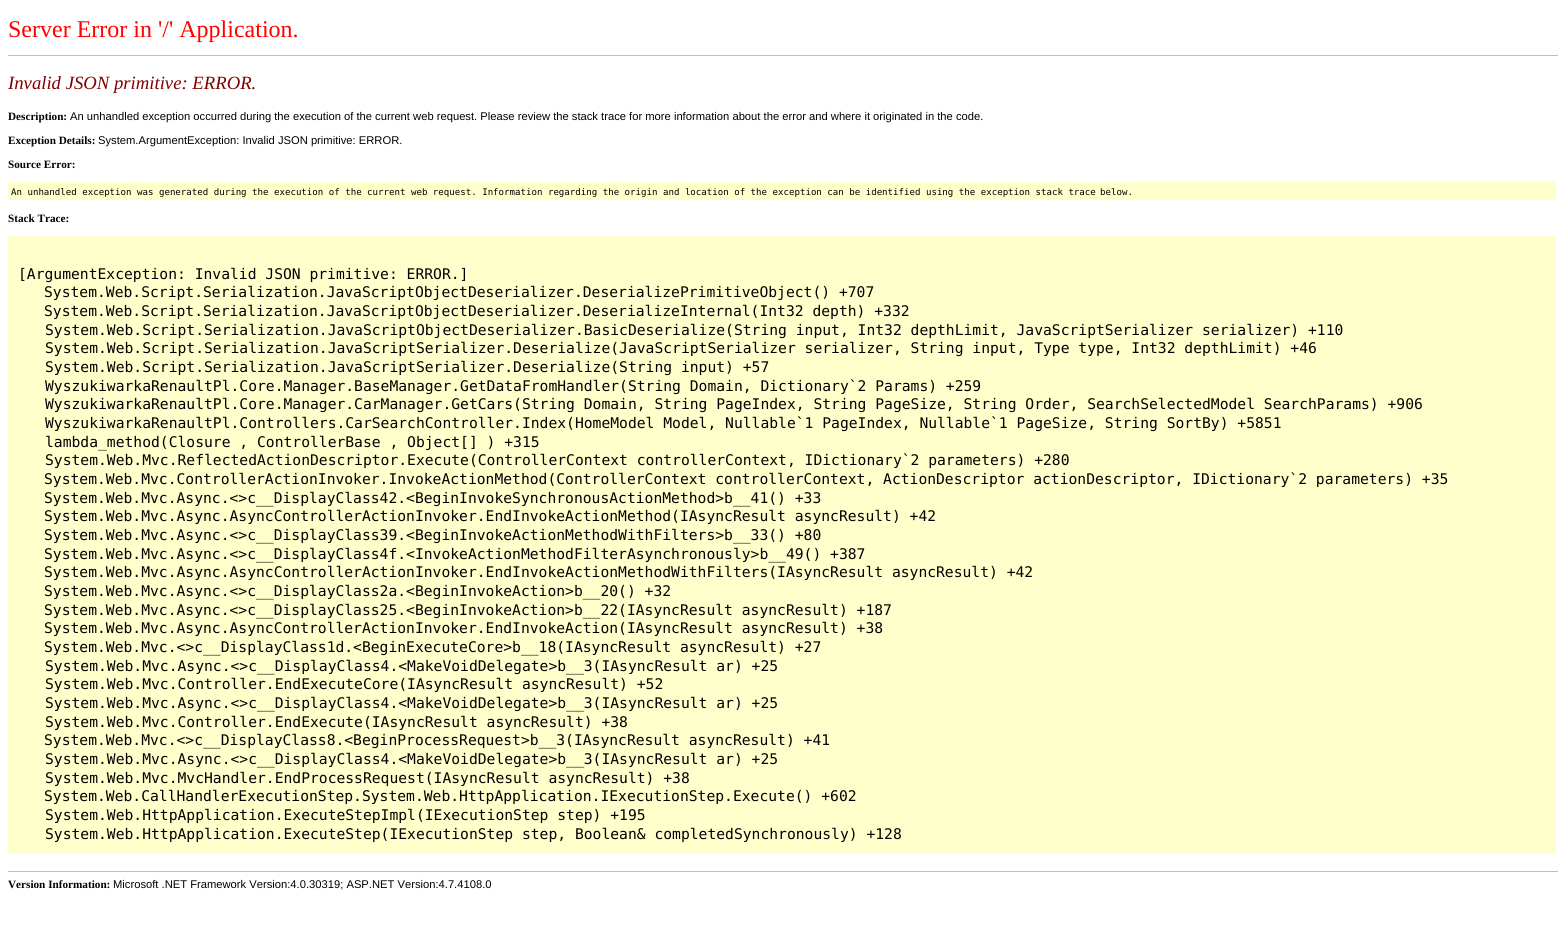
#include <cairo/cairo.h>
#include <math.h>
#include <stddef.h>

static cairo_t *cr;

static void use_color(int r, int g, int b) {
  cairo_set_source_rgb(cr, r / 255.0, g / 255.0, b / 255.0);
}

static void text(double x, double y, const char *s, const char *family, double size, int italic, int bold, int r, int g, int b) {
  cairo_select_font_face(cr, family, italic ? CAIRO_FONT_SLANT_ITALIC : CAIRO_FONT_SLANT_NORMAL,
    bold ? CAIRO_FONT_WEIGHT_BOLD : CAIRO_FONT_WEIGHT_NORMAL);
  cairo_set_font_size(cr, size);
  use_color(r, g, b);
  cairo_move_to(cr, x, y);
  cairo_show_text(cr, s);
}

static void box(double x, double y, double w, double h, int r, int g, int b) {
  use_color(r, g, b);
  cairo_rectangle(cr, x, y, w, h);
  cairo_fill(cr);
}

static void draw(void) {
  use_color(255, 255, 255);
  cairo_paint(cr);
  box(8, 55, 1550, 1, 192, 192, 192);
  box(8, 182, 1548, 18, 255, 255, 204);
  box(8, 236, 1548, 618, 255, 255, 204);
  box(8, 871, 1550, 1, 192, 192, 192);
  text(8, 37, "Server Error in '/' Application.", "Liberation Serif", 24, 0, 0, 255, 0, 0);
  text(8, 89, "Invalid JSON primitive: ERROR.", "Liberation Serif", 18.7, 1, 0, 128, 0, 0);
  text(8, 120, "Description:", "Liberation Serif", 11.2, 0, 1, 0, 0, 0);
  text(70, 120, "An unhandled exception occurred during the execution of the current web request. Please review the stack trace for more information about the error and where it originated in the code.", "Liberation Sans", 11.2, 0, 0, 0, 0, 0);
  text(8, 144, "Exception Details:", "Liberation Serif", 11.2, 0, 1, 0, 0, 0);
  text(98, 144, "System.ArgumentException: Invalid JSON primitive: ERROR.", "Liberation Sans", 11.2, 0, 0, 0, 0, 0);
  text(8, 168, "Source Error:", "Liberation Serif", 11.2, 0, 1, 0, 0, 0);
  text(11, 195, "An unhandled exception was generated during the execution of the current web request. Information regarding the origin and location of the exception can be identified using the exception stack trace", "DejaVu Sans Mono", 9.1, 0, 0, 0, 0, 0);
  text(1100, 195, "below.", "DejaVu Sans Mono", 9.1, 0, 0, 0, 0, 0);
  text(8, 222, "Stack Trace:", "Liberation Serif", 11.2, 0, 1, 0, 0, 0);
  text(18, 279, "[ArgumentException: Invalid JSON primitive: ERROR.]", "DejaVu Sans Mono", 14.67, 0, 0, 0, 0, 0);
  text(44, 297, "System.Web.Script.Serialization.JavaScriptObjectDeserializer.DeserializePrimitiveObject() +707", "DejaVu Sans Mono", 14.67, 0, 0, 0, 0, 0);
  text(44, 316, "System.Web.Script.Serialization.JavaScriptObjectDeserializer.DeserializeInternal(Int32 depth) +332", "DejaVu Sans Mono", 14.67, 0, 0, 0, 0, 0);
  text(45, 335, "System.Web.Script.Serialization.JavaScriptObjectDeserializer.BasicDeserialize(String input, Int32 depthLimit, JavaScriptSerializer serializer) +110", "DejaVu Sans Mono", 14.67, 0, 0, 0, 0, 0);
  text(45, 353, "System.Web.Script.Serialization.JavaScriptSerializer.Deserialize(JavaScriptSerializer serializer, String input, Type type, Int32 depthLimit) +46", "DejaVu Sans Mono", 14.67, 0, 0, 0, 0, 0);
  text(45, 372, "System.Web.Script.Serialization.JavaScriptSerializer.Deserialize(String input) +57", "DejaVu Sans Mono", 14.67, 0, 0, 0, 0, 0);
  text(45, 391, "WyszukiwarkaRenaultPl.Core.Manager.BaseManager.GetDataFromHandler(String Domain, Dictionary`2 Params) +259", "DejaVu Sans Mono", 14.67, 0, 0, 0, 0, 0);
  text(45, 409, "WyszukiwarkaRenaultPl.Core.Manager.CarManager.GetCars(String Domain, String PageIndex, String PageSize, String Order, SearchSelectedModel SearchParams) +906", "DejaVu Sans Mono", 14.67, 0, 0, 0, 0, 0);
  text(45, 428, "WyszukiwarkaRenaultPl.Controllers.CarSearchController.Index(HomeModel Model, Nullable`1 PageIndex, Nullable`1 PageSize, String SortBy) +5851", "DejaVu Sans Mono", 14.67, 0, 0, 0, 0, 0);
  text(45, 447, "lambda_method(Closure , ControllerBase , Object[] ) +315", "DejaVu Sans Mono", 14.67, 0, 0, 0, 0, 0);
  text(45, 465, "System.Web.Mvc.ReflectedActionDescriptor.Execute(ControllerContext controllerContext, IDictionary`2 parameters) +280", "DejaVu Sans Mono", 14.67, 0, 0, 0, 0, 0);
  text(44, 484, "System.Web.Mvc.ControllerActionInvoker.InvokeActionMethod(ControllerContext controllerContext, ActionDescriptor actionDescriptor, IDictionary`2 parameters) +35", "DejaVu Sans Mono", 14.67, 0, 0, 0, 0, 0);
  text(44, 503, "System.Web.Mvc.Async.<>c__DisplayClass42.<BeginInvokeSynchronousActionMethod>b__41() +33", "DejaVu Sans Mono", 14.67, 0, 0, 0, 0, 0);
  text(44, 521, "System.Web.Mvc.Async.AsyncControllerActionInvoker.EndInvokeActionMethod(IAsyncResult asyncResult) +42", "DejaVu Sans Mono", 14.67, 0, 0, 0, 0, 0);
  text(44, 540, "System.Web.Mvc.Async.<>c__DisplayClass39.<BeginInvokeActionMethodWithFilters>b__33() +80", "DejaVu Sans Mono", 14.67, 0, 0, 0, 0, 0);
  text(44, 559, "System.Web.Mvc.Async.<>c__DisplayClass4f.<InvokeActionMethodFilterAsynchronously>b__49() +387", "DejaVu Sans Mono", 14.67, 0, 0, 0, 0, 0);
  text(44, 577, "System.Web.Mvc.Async.AsyncControllerActionInvoker.EndInvokeActionMethodWithFilters(IAsyncResult asyncResult) +42", "DejaVu Sans Mono", 14.67, 0, 0, 0, 0, 0);
  text(44, 596, "System.Web.Mvc.Async.<>c__DisplayClass2a.<BeginInvokeAction>b__20() +32", "DejaVu Sans Mono", 14.67, 0, 0, 0, 0, 0);
  text(44, 615, "System.Web.Mvc.Async.<>c__DisplayClass25.<BeginInvokeAction>b__22(IAsyncResult asyncResult) +187", "DejaVu Sans Mono", 14.67, 0, 0, 0, 0, 0);
  text(44, 633, "System.Web.Mvc.Async.AsyncControllerActionInvoker.EndInvokeAction(IAsyncResult asyncResult) +38", "DejaVu Sans Mono", 14.67, 0, 0, 0, 0, 0);
  text(44, 652, "System.Web.Mvc.<>c__DisplayClass1d.<BeginExecuteCore>b__18(IAsyncResult asyncResult) +27", "DejaVu Sans Mono", 14.67, 0, 0, 0, 0, 0);
  text(45, 671, "System.Web.Mvc.Async.<>c__DisplayClass4.<MakeVoidDelegate>b__3(IAsyncResult ar) +25", "DejaVu Sans Mono", 14.67, 0, 0, 0, 0, 0);
  text(45, 689, "System.Web.Mvc.Controller.EndExecuteCore(IAsyncResult asyncResult) +52", "DejaVu Sans Mono", 14.67, 0, 0, 0, 0, 0);
  text(45, 708, "System.Web.Mvc.Async.<>c__DisplayClass4.<MakeVoidDelegate>b__3(IAsyncResult ar) +25", "DejaVu Sans Mono", 14.67, 0, 0, 0, 0, 0);
  text(45, 727, "System.Web.Mvc.Controller.EndExecute(IAsyncResult asyncResult) +38", "DejaVu Sans Mono", 14.67, 0, 0, 0, 0, 0);
  text(44, 745, "System.Web.Mvc.<>c__DisplayClass8.<BeginProcessRequest>b__3(IAsyncResult asyncResult) +41", "DejaVu Sans Mono", 14.67, 0, 0, 0, 0, 0);
  text(45, 764, "System.Web.Mvc.Async.<>c__DisplayClass4.<MakeVoidDelegate>b__3(IAsyncResult ar) +25", "DejaVu Sans Mono", 14.67, 0, 0, 0, 0, 0);
  text(45, 783, "System.Web.Mvc.MvcHandler.EndProcessRequest(IAsyncResult asyncResult) +38", "DejaVu Sans Mono", 14.67, 0, 0, 0, 0, 0);
  text(44, 801, "System.Web.CallHandlerExecutionStep.System.Web.HttpApplication.IExecutionStep.Execute() +602", "DejaVu Sans Mono", 14.67, 0, 0, 0, 0, 0);
  text(45, 820, "System.Web.HttpApplication.ExecuteStepImpl(IExecutionStep step) +195", "DejaVu Sans Mono", 14.67, 0, 0, 0, 0, 0);
  text(45, 839, "System.Web.HttpApplication.ExecuteStep(IExecutionStep step, Boolean& completedSynchronously) +128", "DejaVu Sans Mono", 14.67, 0, 0, 0, 0, 0);
  text(8, 888, "Version Information:", "Liberation Serif", 11.2, 0, 1, 0, 0, 0);
  text(113, 888, "Microsoft .NET Framework Version:4.0.30319; ASP.NET Version:4.7.4108.0", "Liberation Sans", 11.2, 0, 0, 0, 0, 0);
}

int main(void) {
  cairo_surface_t *surface = cairo_image_surface_create(CAIRO_FORMAT_RGB24, 1564, 933);
  cr = cairo_create(surface);
  cairo_font_options_t *options = cairo_font_options_create();
  cairo_font_options_set_hint_metrics(options, CAIRO_HINT_METRICS_OFF);
  cairo_font_options_set_hint_style(options, CAIRO_HINT_STYLE_NONE);
  cairo_set_font_options(cr, options);
  cairo_set_miter_limit(cr, 4);
  draw();
  cairo_surface_write_to_png(surface, "out.png");
  cairo_font_options_destroy(options);
  cairo_destroy(cr);
  cairo_surface_destroy(surface);
  return 0;
}
